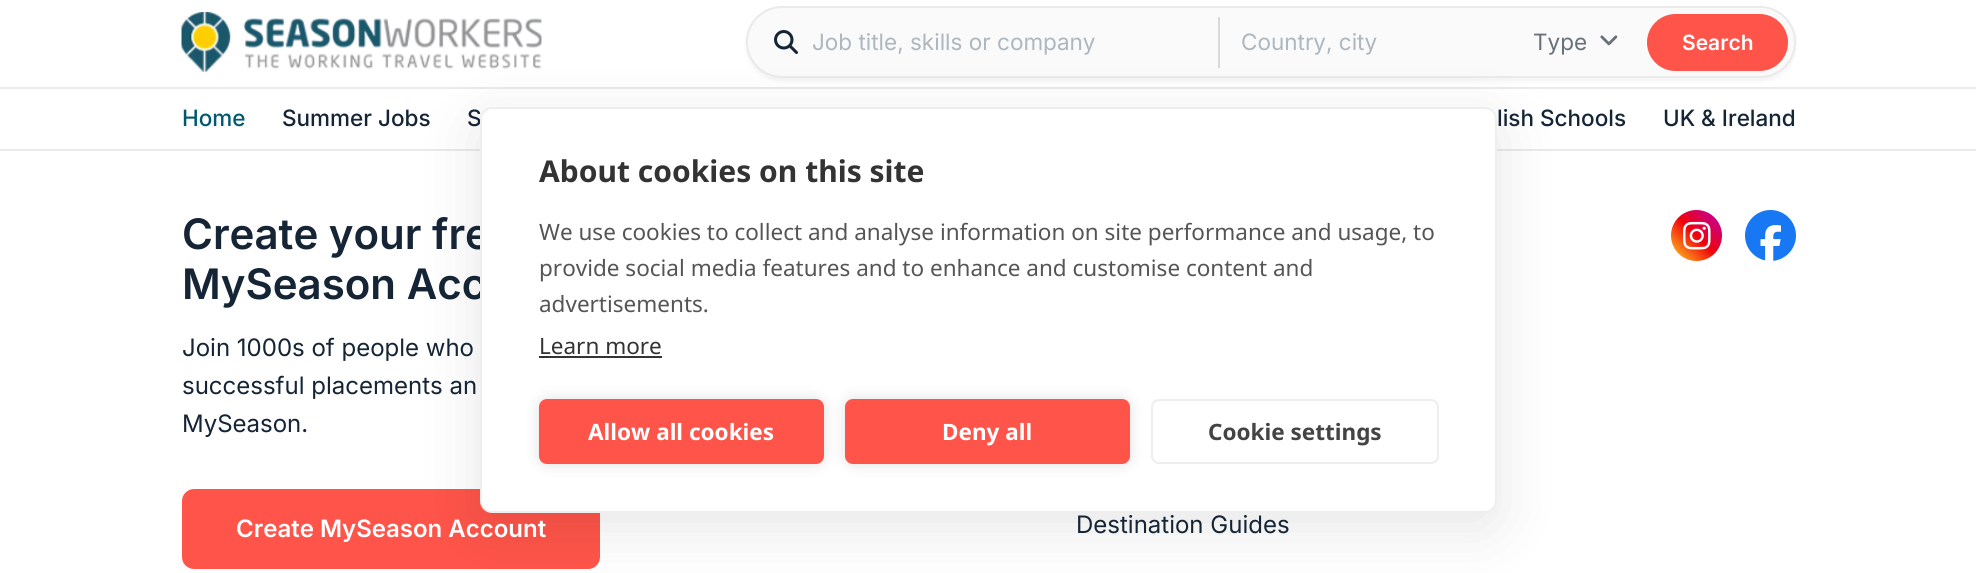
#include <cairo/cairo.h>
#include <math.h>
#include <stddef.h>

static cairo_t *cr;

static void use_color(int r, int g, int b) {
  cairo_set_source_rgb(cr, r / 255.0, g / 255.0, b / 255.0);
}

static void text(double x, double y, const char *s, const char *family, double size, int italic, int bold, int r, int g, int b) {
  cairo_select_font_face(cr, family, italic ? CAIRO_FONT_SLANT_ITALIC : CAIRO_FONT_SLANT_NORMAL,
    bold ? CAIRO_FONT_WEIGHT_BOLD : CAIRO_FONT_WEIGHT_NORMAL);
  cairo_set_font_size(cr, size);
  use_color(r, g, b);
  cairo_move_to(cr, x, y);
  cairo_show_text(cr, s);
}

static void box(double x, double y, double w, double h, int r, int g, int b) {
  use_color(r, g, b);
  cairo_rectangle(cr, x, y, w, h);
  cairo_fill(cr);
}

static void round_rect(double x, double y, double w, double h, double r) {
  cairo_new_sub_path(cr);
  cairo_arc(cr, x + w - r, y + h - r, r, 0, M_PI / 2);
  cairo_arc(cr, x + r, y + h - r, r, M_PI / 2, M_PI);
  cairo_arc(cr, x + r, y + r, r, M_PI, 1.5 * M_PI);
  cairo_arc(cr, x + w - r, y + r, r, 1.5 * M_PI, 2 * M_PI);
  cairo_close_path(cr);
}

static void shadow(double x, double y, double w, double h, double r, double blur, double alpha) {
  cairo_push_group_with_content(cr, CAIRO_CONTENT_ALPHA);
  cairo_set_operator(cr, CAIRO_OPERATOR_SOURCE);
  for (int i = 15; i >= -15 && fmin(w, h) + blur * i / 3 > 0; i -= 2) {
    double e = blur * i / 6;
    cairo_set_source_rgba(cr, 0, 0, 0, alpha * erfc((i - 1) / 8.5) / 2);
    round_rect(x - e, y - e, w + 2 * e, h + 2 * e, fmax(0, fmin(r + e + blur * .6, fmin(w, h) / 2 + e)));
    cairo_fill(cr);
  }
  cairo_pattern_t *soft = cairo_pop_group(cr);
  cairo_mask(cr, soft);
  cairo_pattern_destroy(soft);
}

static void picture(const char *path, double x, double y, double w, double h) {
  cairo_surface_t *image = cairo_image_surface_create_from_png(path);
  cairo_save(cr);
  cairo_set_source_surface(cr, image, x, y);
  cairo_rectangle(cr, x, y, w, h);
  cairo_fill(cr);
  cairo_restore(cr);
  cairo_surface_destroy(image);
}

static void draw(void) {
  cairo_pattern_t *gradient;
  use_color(255, 255, 255);
  cairo_paint(cr);
  box(0, 87, 1976, 2, 234, 234, 234);
  picture("img_01.png", 181, 12, 361, 60);
  use_color(0, 0, 0);
  shadow(746, 9, 1050, 72, 36, 2, 0.05);
  use_color(250, 250, 250);
  round_rect(747, 7, 1048, 70, 35);
  cairo_fill_preserve(cr);
  use_color(234, 234, 234);
  cairo_stroke(cr);
  picture("img_02.png", 774, 30, 24, 24);
  box(1218, 17, 2, 51, 217, 217, 217);
  picture("img_03.png", 1600, 35, 18, 11);
  use_color(255, 84, 73);
  round_rect(1648, 15, 139, 55, 27.5);
  cairo_fill_preserve(cr);
  cairo_stroke(cr);
  box(0, 149, 1976, 2, 234, 234, 234);
  use_color(255, 84, 73);
  round_rect(183, 490, 416, 78, 11);
  cairo_fill_preserve(cr);
  cairo_stroke(cr);
  use_color(0, 0, 0);
  shadow(480, 122, 1017, 406, 12, 30, 0.1);
  gradient = cairo_pattern_create_linear(1671, 261, 1722, 210);
  cairo_pattern_add_color_stop_rgba(gradient, 0, 1, 0.835, 0.133, 1);
  cairo_pattern_add_color_stop_rgba(gradient, 0.5, 0.945, 0, 0.043, 1);
  cairo_pattern_add_color_stop_rgba(gradient, 1, 0.725, 0, 0.702, 1);
  cairo_set_source(cr, gradient);
  cairo_pattern_destroy(gradient);
  cairo_arc(cr, 1696.5, 235.5, 25.5, 0, 2 * M_PI);
  cairo_fill(cr);
  picture("img_04.png", 1683, 221, 28, 29);
  use_color(24, 119, 242);
  cairo_arc(cr, 1770.5, 235.5, 25.5, 0, 2 * M_PI);
  cairo_fill(cr);
  picture("img_05.png", 1760, 225, 21, 36);
  text(812, 50, "Job title, skills or company", "Inter", 22.5, 0, 0, 174, 182, 190);
  text(1241, 50, "Country, city", "Inter", 22.5, 0, 0, 174, 182, 190);
  text(1533, 50, "Type", "Inter", 22.5, 0, 0, 104, 113, 122);
  text(1682, 50, "Search", "Inter SemiBold", 21, 0, 0, 255, 255, 255);
  text(182, 126, "Home", "Inter Medium", 22.5, 0, 0, 0, 89, 110);
  text(282, 126, "Summer Jobs", "Inter Medium", 22.5, 0, 0, 21, 37, 54);
  text(467, 126, "S", "Inter Medium", 22.5, 0, 0, 21, 37, 54);
  text(1497, 126, "lish Schools", "Inter Medium", 22.5, 0, 0, 21, 37, 54);
  text(1663, 126, "UK & Ireland", "Inter Medium", 22.5, 0, 0, 21, 37, 54);
  text(182, 249, "Create your fre", "Inter SemiBold", 42, 0, 0, 21, 37, 54);
  text(182, 299, "MySeason Acc", "Inter SemiBold", 42, 0, 0, 21, 37, 54);
  use_color(255, 255, 255);
  round_rect(481, 108, 1015, 404, 11);
  cairo_fill_preserve(cr);
  use_color(238, 238, 238);
  cairo_stroke(cr);
  use_color(0, 0, 0);
  shadow(539, 399, 285, 65, 8, 7.5, 0.12);
  use_color(255, 84, 73);
  round_rect(539, 399, 285, 65, 8);
  cairo_fill(cr);
  use_color(0, 0, 0);
  shadow(845, 399, 285, 65, 8, 7.5, 0.12);
  round_rect(1152, 400, 286, 63, 7);
  use_color(238, 238, 238);
  cairo_stroke(cr);
  text(1208, 440, "Cookie settings", "Noto Sans", 22.5, 0, 1, 68, 68, 68);
  use_color(255, 84, 73);
  round_rect(845, 399, 285, 65, 8);
  cairo_fill(cr);
  text(942, 440, "Deny all", "Noto Sans", 22.5, 0, 1, 255, 255, 255);
  text(588, 440, "Allow all cookies", "Noto Sans", 22.5, 0, 1, 255, 255, 255);
  text(539, 354, "Learn more", "Noto Sans", 22.5, 0, 0, 51, 51, 51);
  box(539, 356, 123, 2, 51, 51, 51);
  text(539, 312, "advertisements.", "Noto Sans", 22.5, 0, 0, 85, 85, 85);
  text(539, 276, "provide social media features and to enhance and customise content and", "Noto Sans", 22.5, 0, 0, 85, 85, 85);
  text(539, 240, "We use cookies to collect and analyse information on site performance and usage, to", "Noto Sans", 22.5, 0, 0, 85, 85, 85);
  text(539, 182, "About cookies on this site", "Noto Sans", 30, 0, 1, 51, 51, 51);
  text(182, 356, "Join 1000s of people who", "Inter", 24, 0, 0, 21, 37, 54);
  text(182, 394, "successful placements an", "Inter", 24, 0, 0, 21, 37, 54);
  text(182, 432, "MySeason.", "Inter", 24, 0, 0, 21, 37, 54);
  text(236, 537, "Create MySeason Account", "Inter SemiBold", 24, 0, 0, 255, 255, 255);
  text(1076, 533, "Destination Guides", "Inter", 24, 0, 0, 21, 37, 54);
}

int main(void) {
  cairo_surface_t *surface = cairo_image_surface_create(CAIRO_FORMAT_RGB24, 1976, 573);
  cr = cairo_create(surface);
  cairo_font_options_t *options = cairo_font_options_create();
  cairo_font_options_set_hint_metrics(options, CAIRO_HINT_METRICS_OFF);
  cairo_font_options_set_hint_style(options, CAIRO_HINT_STYLE_NONE);
  cairo_set_font_options(cr, options);
  cairo_set_miter_limit(cr, 4);
  draw();
  cairo_surface_write_to_png(surface, "out.png");
  cairo_font_options_destroy(options);
  cairo_destroy(cr);
  cairo_surface_destroy(surface);
  return 0;
}
